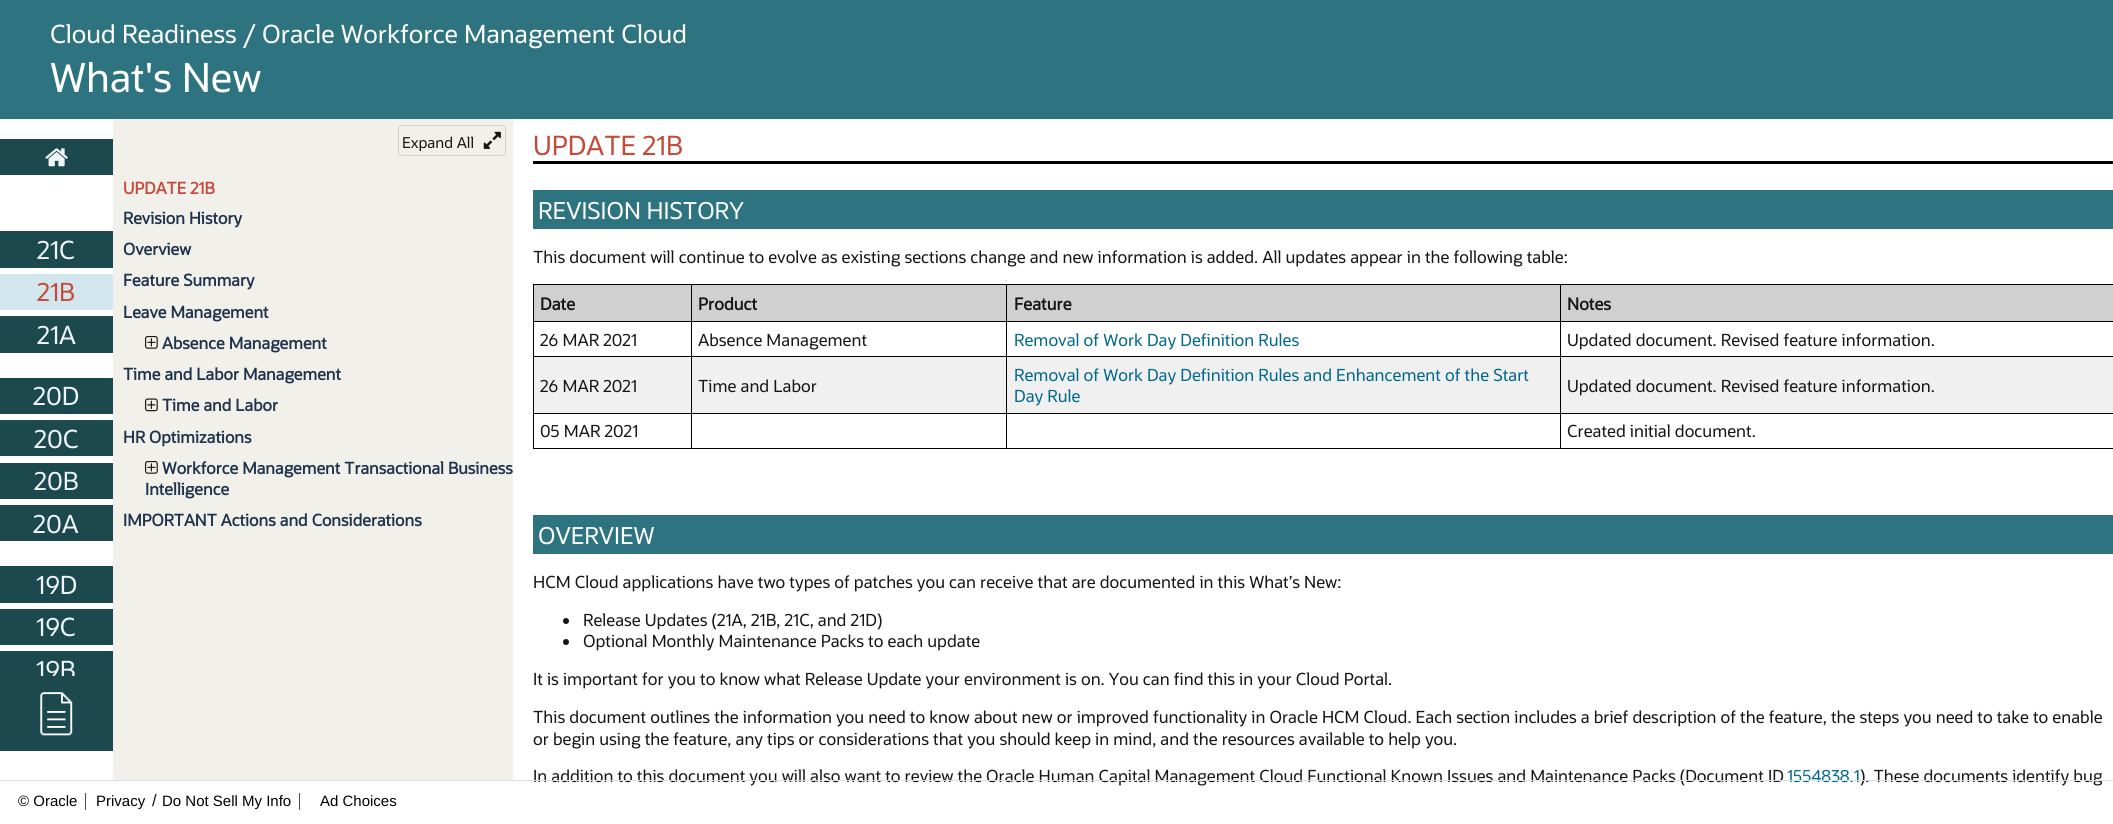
#include <cairo/cairo.h>
#include <math.h>
#include <stddef.h>

static cairo_t *cr;

static void use_color(int r, int g, int b) {
  cairo_set_source_rgb(cr, r / 255.0, g / 255.0, b / 255.0);
}

static void text(double x, double y, const char *s, const char *family, double size, int italic, int bold, int r, int g, int b) {
  cairo_select_font_face(cr, family, italic ? CAIRO_FONT_SLANT_ITALIC : CAIRO_FONT_SLANT_NORMAL,
    bold ? CAIRO_FONT_WEIGHT_BOLD : CAIRO_FONT_WEIGHT_NORMAL);
  cairo_set_font_size(cr, size);
  use_color(r, g, b);
  cairo_move_to(cr, x, y);
  cairo_show_text(cr, s);
}

static void box(double x, double y, double w, double h, int r, int g, int b) {
  use_color(r, g, b);
  cairo_rectangle(cr, x, y, w, h);
  cairo_fill(cr);
}

static void round_rect(double x, double y, double w, double h, double r) {
  cairo_new_sub_path(cr);
  cairo_arc(cr, x + w - r, y + h - r, r, 0, M_PI / 2);
  cairo_arc(cr, x + r, y + h - r, r, M_PI / 2, M_PI);
  cairo_arc(cr, x + r, y + r, r, M_PI, 1.5 * M_PI);
  cairo_arc(cr, x + w - r, y + r, r, 1.5 * M_PI, 2 * M_PI);
  cairo_close_path(cr);
}

static void picture(const char *path, double x, double y, double w, double h) {
  cairo_surface_t *image = cairo_image_surface_create_from_png(path);
  cairo_save(cr);
  cairo_set_source_surface(cr, image, x, y);
  cairo_rectangle(cr, x, y, w, h);
  cairo_fill(cr);
  cairo_restore(cr);
  cairo_surface_destroy(image);
}

static void draw(void) {
  use_color(255, 255, 255);
  cairo_paint(cr);
  box(0, 0, 2113, 119, 45, 116, 128);
  box(0, 139, 113, 36, 28, 73, 78);
  picture("img_01.png", 45, 148, 23, 19);
  box(0, 231, 113, 37, 28, 73, 78);
  box(0, 274, 113, 36, 209, 230, 237);
  box(0, 316, 113, 37, 28, 73, 78);
  box(0, 378, 113, 36, 28, 73, 78);
  box(0, 420, 113, 36, 28, 73, 78);
  box(0, 463, 113, 36, 28, 73, 78);
  box(0, 505, 113, 36, 28, 73, 78);
  box(0, 566, 113, 37, 28, 73, 78);
  box(0, 609, 113, 36, 28, 73, 78);
  box(0, 651, 113, 25, 28, 73, 78);
  box(113, 119, 400, 661, 241, 240, 235);
  round_rect(398.5, 125.5, 107, 30, 3.5);
  use_color(211, 211, 211);
  cairo_set_line_width(cr, 1);
  cairo_stroke(cr);
  picture("img_03.png", 483, 131, 18, 18);
  picture("img_04.png", 145, 336, 13, 13);
  picture("img_05.png", 145, 398, 13, 14);
  picture("img_04.png", 145, 461, 13, 13);
  box(533, 161, 1580, 3, 0, 0, 0);
  box(533, 190, 1580, 39, 45, 116, 128);
  box(533, 284, 1580, 1, 0, 0, 0);
  box(533, 448, 1580, 1, 0, 0, 0);
  box(533, 284, 1, 165, 0, 0, 0);
  box(534, 285, 1579, 36, 208, 208, 208);
  box(1560, 321, 553, 1, 0, 0, 0);
  box(534, 357, 1579, 56, 240, 240, 240);
  box(1560, 356, 553, 1, 0, 0, 0);
  box(1560, 413, 553, 1, 0, 0, 0);
  box(1560, 413, 1, 36, 0, 0, 0);
  box(1006, 413, 555, 1, 0, 0, 0);
  box(1560, 356, 1, 58, 0, 0, 0);
  box(1006, 356, 555, 1, 0, 0, 0);
  box(1560, 321, 1, 37, 0, 0, 0);
  box(1006, 321, 555, 1, 0, 0, 0);
  box(1006, 413, 1, 36, 0, 0, 0);
  box(691, 413, 317, 1, 0, 0, 0);
  box(1006, 356, 1, 58, 0, 0, 0);
  box(691, 356, 317, 1, 0, 0, 0);
  box(1006, 321, 1, 37, 0, 0, 0);
  box(691, 321, 317, 1, 0, 0, 0);
  box(691, 413, 1, 36, 0, 0, 0);
  box(533, 413, 160, 1, 0, 0, 0);
  box(691, 356, 1, 58, 0, 0, 0);
  box(533, 356, 160, 1, 0, 0, 0);
  box(691, 321, 1, 37, 0, 0, 0);
  box(533, 321, 160, 1, 0, 0, 0);
  box(691, 284, 1, 39, 0, 0, 0);
  box(1006, 284, 1, 39, 0, 0, 0);
  box(1560, 284, 1, 39, 0, 0, 0);
  box(533, 515, 1580, 39, 45, 116, 128);
  use_color(22, 21, 19);
  cairo_arc(cr, 566, 621, 3, 0, 2 * M_PI);
  cairo_fill(cr);
  cairo_arc(cr, 566, 642, 3, 0, 2 * M_PI);
  cairo_fill(cr);
  box(534, 781, 1568, 5, 255, 255, 255);
  box(85, 793, 1, 17, 74, 76, 79);
  box(299, 793, 1, 17, 74, 76, 79);
  text(50, 43, "Cloud Readiness / Oracle Workforce Management Cloud", "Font", 25, 0, 0, 255, 255, 255);
  text(50, 92, "What's New", "Font", 40, 0, 0, 255, 255, 255);
  text(37, 259, "21C", "Font", 25, 0, 0, 239, 245, 249);
  text(37, 301, "21B", "Font", 25, 0, 0, 197, 74, 57);
  text(37, 344, "21A", "Font", 25, 0, 0, 239, 245, 249);
  text(33, 405, "20D", "Font", 25, 0, 0, 239, 245, 249);
  text(34, 448, "20C", "Font", 25, 0, 0, 239, 245, 249);
  text(34, 490, "20B", "Font", 25, 0, 0, 239, 245, 249);
  text(33, 533, "20A", "Font", 25, 0, 0, 239, 245, 249);
  text(36, 594, "19D", "Font", 25, 0, 0, 239, 245, 249);
  text(36, 636, "19C", "Font", 25, 0, 0, 239, 245, 249);
  text(36, 679, "19B", "Font", 25, 0, 0, 239, 245, 249);
  box(0, 676, 113, 75, 28, 73, 78);
  picture("img_02.png", 40, 692, 33, 44);
  text(402, 148, "Expand All", "Font", 15, 0, 0, 22, 21, 19);
  text(123, 194, "UPDATE 21B", "Font", 16.25, 0, 1, 197, 74, 57);
  text(123, 224, "Revision History", "Font", 16.25, 0, 1, 31, 51, 75);
  text(123, 255, "Overview", "Font", 16.25, 0, 1, 31, 51, 75);
  text(123, 286, "Feature Summary", "Font", 16.25, 0, 1, 31, 51, 75);
  text(123, 318, "Leave Management", "Font", 16.25, 0, 1, 31, 51, 75);
  text(162, 349, "Absence Management", "Font", 16.25, 0, 1, 31, 51, 75);
  text(123, 380, "Time and Labor Management", "Font", 16.25, 0, 1, 31, 51, 75);
  text(162, 411, "Time and Labor", "Font", 16.25, 0, 1, 31, 51, 75);
  text(123, 443, "HR Optimizations", "Font", 16.25, 0, 1, 31, 51, 75);
  text(162, 474, "Workforce Management Transactional Business", "Font", 16.25, 0, 1, 31, 51, 75);
  text(145, 495, "Intelligence", "Font", 16.25, 0, 1, 31, 51, 75);
  text(123, 526, "IMPORTANT Actions and Considerations", "Font", 16.25, 0, 1, 31, 51, 75);
  text(533, 155, "UPDATE 21B", "Font", 26.5, 0, 0, 197, 74, 57);
  text(538, 219, "REVISION HISTORY", "Font", 23.25, 0, 0, 255, 255, 255);
  text(533, 263, "This document will continue to evolve as existing sections change and new information is added. All updates appear in the following table:", "Font", 16.67, 0, 0, 22, 21, 19);
  text(540, 310, "Date", "Font", 16.67, 0, 1, 22, 21, 19);
  text(698, 310, "Product", "Font", 16.67, 0, 1, 22, 21, 19);
  text(1014, 310, "Feature", "Font", 16.67, 0, 1, 22, 21, 19);
  text(1567, 310, "Notes", "Font", 16.67, 0, 1, 22, 21, 19);
  text(540, 346, "26 MAR 2021", "Font", 16.67, 0, 0, 22, 21, 19);
  text(698, 346, "Absence Management", "Font", 16.67, 0, 0, 22, 21, 19);
  text(1014, 346, "Removal of Work Day Definition Rules", "Font", 16.67, 0, 0, 0, 104, 140);
  text(1567, 346, "Updated document. Revised feature information.", "Font", 16.67, 0, 0, 22, 21, 19);
  text(540, 392, "26 MAR 2021", "Font", 16.67, 0, 0, 22, 21, 19);
  text(698, 392, "Time and Labor", "Font", 16.67, 0, 0, 22, 21, 19);
  text(1014, 381, "Removal of Work Day Definition Rules and Enhancement of the Start", "Font", 16.67, 0, 0, 0, 104, 140);
  text(1014, 402, "Day Rule", "Font", 16.67, 0, 0, 0, 104, 140);
  text(1567, 392, "Updated document. Revised feature information.", "Font", 16.67, 0, 0, 22, 21, 19);
  text(540, 437, "05 MAR 2021", "Font", 16.67, 0, 0, 22, 21, 19);
  text(1567, 437, "Created initial document.", "Font", 16.67, 0, 0, 22, 21, 19);
  text(538, 544, "OVERVIEW", "Font", 23.25, 0, 0, 255, 255, 255);
  text(533, 588, "HCM Cloud applications have two types of patches you can receive that are documented in this What’s New:", "Font", 16.67, 0, 0, 22, 21, 19);
  text(583, 626, "Release Updates (21A, 21B, 21C, and 21D)", "Font", 16.67, 0, 0, 22, 21, 19);
  text(583, 647, "Optional Monthly Maintenance Packs to each update", "Font", 16.67, 0, 0, 22, 21, 19);
  text(533, 685, "It is important for you to know what Release Update your environment is on. You can find this in your Cloud Portal.", "Font", 16.67, 0, 0, 22, 21, 19);
  text(533, 723, "This document outlines the information you need to know about new or improved functionality in Oracle HCM Cloud. Each section includes a brief description of the feature, the steps you need to take to enable", "Font", 16.67, 0, 0, 22, 21, 19);
  text(533, 745, "or begin using the feature, any tips or considerations that you should keep in mind, and the resources available to help you.", "Font", 16.67, 0, 0, 22, 21, 19);
  text(533, 782, "In addition to this document you will also want to review the Oracle Human Capital Management Cloud Functional Known Issues and Maintenance Packs (Document ID", "Font", 16.67, 0, 0, 22, 21, 19);
  text(1787, 782, "1554838.1", "Font", 16.67, 0, 0, 0, 104, 140);
  text(1860, 782, "). These documents identify bug", "Font", 16.67, 0, 0, 22, 21, 19);
  box(0, 780, 2113, 1, 217, 223, 227);
  text(18, 806, "© Oracle", "Liberation Sans", 15, 0, 0, 0, 0, 0);
  text(96, 806, "Privacy", "Liberation Sans", 15, 0, 0, 0, 0, 0);
  text(152, 806, "/", "Liberation Sans", 16.67, 0, 0, 22, 21, 19);
  text(162, 806, "Do Not Sell My Info", "Liberation Sans", 15, 0, 0, 0, 0, 0);
  text(320, 806, "Ad Choices", "Liberation Sans", 15, 0, 0, 0, 0, 0);
}

int main(void) {
  cairo_surface_t *surface = cairo_image_surface_create(CAIRO_FORMAT_RGB24, 2113, 824);
  cr = cairo_create(surface);
  cairo_font_options_t *options = cairo_font_options_create();
  cairo_font_options_set_hint_metrics(options, CAIRO_HINT_METRICS_OFF);
  cairo_font_options_set_hint_style(options, CAIRO_HINT_STYLE_NONE);
  cairo_set_font_options(cr, options);
  cairo_set_miter_limit(cr, 4);
  draw();
  cairo_surface_write_to_png(surface, "out.png");
  cairo_font_options_destroy(options);
  cairo_destroy(cr);
  cairo_surface_destroy(surface);
  return 0;
}
